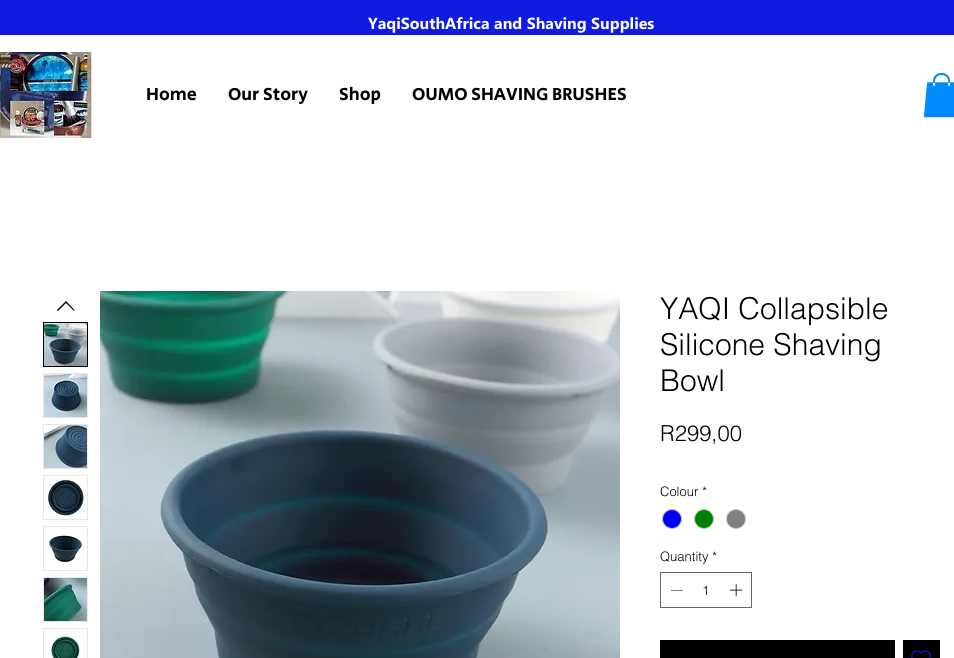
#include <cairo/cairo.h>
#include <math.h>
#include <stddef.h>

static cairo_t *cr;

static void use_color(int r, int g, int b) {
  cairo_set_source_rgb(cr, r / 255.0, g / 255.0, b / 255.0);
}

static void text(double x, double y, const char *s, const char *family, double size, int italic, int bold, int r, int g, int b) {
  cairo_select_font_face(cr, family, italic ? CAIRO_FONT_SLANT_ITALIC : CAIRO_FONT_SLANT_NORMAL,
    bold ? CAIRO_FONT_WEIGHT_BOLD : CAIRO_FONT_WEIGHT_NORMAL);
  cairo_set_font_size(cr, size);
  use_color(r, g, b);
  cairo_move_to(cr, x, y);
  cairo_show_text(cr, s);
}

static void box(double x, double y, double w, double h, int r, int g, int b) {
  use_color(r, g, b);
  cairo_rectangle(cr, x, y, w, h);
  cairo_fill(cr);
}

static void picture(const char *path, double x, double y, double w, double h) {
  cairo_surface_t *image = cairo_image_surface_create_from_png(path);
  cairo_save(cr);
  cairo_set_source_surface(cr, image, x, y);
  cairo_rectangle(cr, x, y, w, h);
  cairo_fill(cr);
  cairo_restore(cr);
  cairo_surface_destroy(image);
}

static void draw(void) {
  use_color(255, 255, 255);
  cairo_paint(cr);
  box(0, 0, 954, 35, 16, 27, 226);
  picture("img_01.png", 0, 52, 92, 86);
  picture("img_02.png", 923, 73, 31, 45);
  use_color(0, 0, 0);
  cairo_set_fill_rule(cr, CAIRO_FILL_RULE_EVEN_ODD);
  cairo_new_path(cr);
  cairo_move_to(cr, 66, 301);
  cairo_line_to(cr, 74.5, 310);
  cairo_line_to(cr, 74, 311);
  cairo_line_to(cr, 66, 303);
  cairo_line_to(cr, 58, 311);
  cairo_line_to(cr, 57, 310);
  cairo_close_path(cr);
  cairo_fill(cr);
  cairo_rectangle(cr, 43.5, 322.5, 44, 44);
  cairo_set_line_width(cr, 1);
  cairo_stroke(cr);
  picture("img_03.png", 44, 323, 43, 43);
  box(43, 373, 45, 45, 232, 230, 230);
  picture("img_04.png", 44, 374, 43, 43);
  box(43, 424, 45, 45, 232, 230, 230);
  picture("img_05.png", 44, 425, 43, 43);
  box(43, 475, 45, 45, 232, 230, 230);
  picture("img_06.png", 44, 476, 43, 43);
  box(43, 526, 45, 45, 232, 230, 230);
  picture("img_07.png", 44, 527, 43, 43);
  box(43, 577, 45, 45, 232, 230, 230);
  picture("img_08.png", 44, 578, 43, 43);
  box(43, 628, 45, 30, 232, 230, 230);
  picture("img_09.png", 44, 629, 43, 29);
  picture("img_10.png", 100, 291, 520, 367);
  use_color(0, 0, 255);
  cairo_arc(cr, 672, 519, 9.5, 0, 2 * M_PI);
  cairo_fill_preserve(cr);
  use_color(201, 201, 201);
  cairo_stroke(cr);
  use_color(0, 128, 0);
  cairo_arc(cr, 704, 519, 9.5, 0, 2 * M_PI);
  cairo_fill_preserve(cr);
  use_color(201, 201, 201);
  cairo_stroke(cr);
  use_color(128, 128, 128);
  cairo_arc(cr, 736, 519, 9.5, 0, 2 * M_PI);
  cairo_fill_preserve(cr);
  use_color(201, 201, 201);
  cairo_stroke(cr);
  cairo_rectangle(cr, 660.5, 572.5, 91, 35);
  use_color(102, 102, 102);
  cairo_stroke(cr);
  use_color(0, 0, 0);
  cairo_new_path(cr);
  cairo_move_to(cr, 683, 590);
  cairo_line_to(cr, 683, 590.5);
  cairo_line_to(cr, 671, 590.5);
  cairo_line_to(cr, 671, 590);
  cairo_close_path(cr);
  cairo_fill(cr);
  picture("img_11.png", 730, 584, 13, 13);
  box(660, 640, 235, 18, 0, 0, 0);
  box(903, 640, 37, 18, 0, 0, 0);
  picture("img_12.png", 911, 650, 20, 8);
  text(368, 29, "YaqiSouthAfrica and Shaving Supplies", "Segoe UI", 16, 0, 1, 253, 253, 253);
  text(146, 100, "Home", "Secular One", 18, 0, 0, 0, 0, 0);
  text(228, 100, "Our Story", "Secular One", 18, 0, 0, 0, 0, 0);
  text(339, 100, "Shop", "Secular One", 18, 0, 0, 0, 0, 0);
  text(412, 100, "OUMO SHAVING BRUSHES", "Secular One", 18, 0, 0, 0, 0, 0);
  text(660, 319, "YAQI Collapsible", "helvetica Light", 30, 0, 0, 0, 0, 0);
  text(660, 355, "Silicone Shaving", "helvetica Light", 30, 0, 0, 0, 0, 0);
  text(660, 391, "Bowl", "helvetica Light", 30, 0, 0, 0, 0, 0);
  text(660, 441, "R299,00", "helvetica Light", 22, 0, 0, 0, 0, 0);
  text(660, 496, "Colour", "helvetica Light", 13, 0, 0, 0, 0, 0);
  text(702, 496, "*", "helvetica Light", 13, 0, 0, 0, 0, 0);
  text(660, 561, "Quantity", "helvetica Light", 13, 0, 0, 0, 0, 0);
  text(712, 561, "*", "helvetica Light", 13, 0, 0, 0, 0, 0);
  text(702, 595, "1", "helvetica Light", 13, 0, 0, 0, 0, 0);
}

int main(void) {
  cairo_surface_t *surface = cairo_image_surface_create(CAIRO_FORMAT_RGB24, 954, 658);
  cr = cairo_create(surface);
  cairo_font_options_t *options = cairo_font_options_create();
  cairo_font_options_set_hint_metrics(options, CAIRO_HINT_METRICS_OFF);
  cairo_font_options_set_hint_style(options, CAIRO_HINT_STYLE_NONE);
  cairo_set_font_options(cr, options);
  cairo_set_miter_limit(cr, 4);
  draw();
  cairo_surface_write_to_png(surface, "out.png");
  cairo_font_options_destroy(options);
  cairo_destroy(cr);
  cairo_surface_destroy(surface);
  return 0;
}
